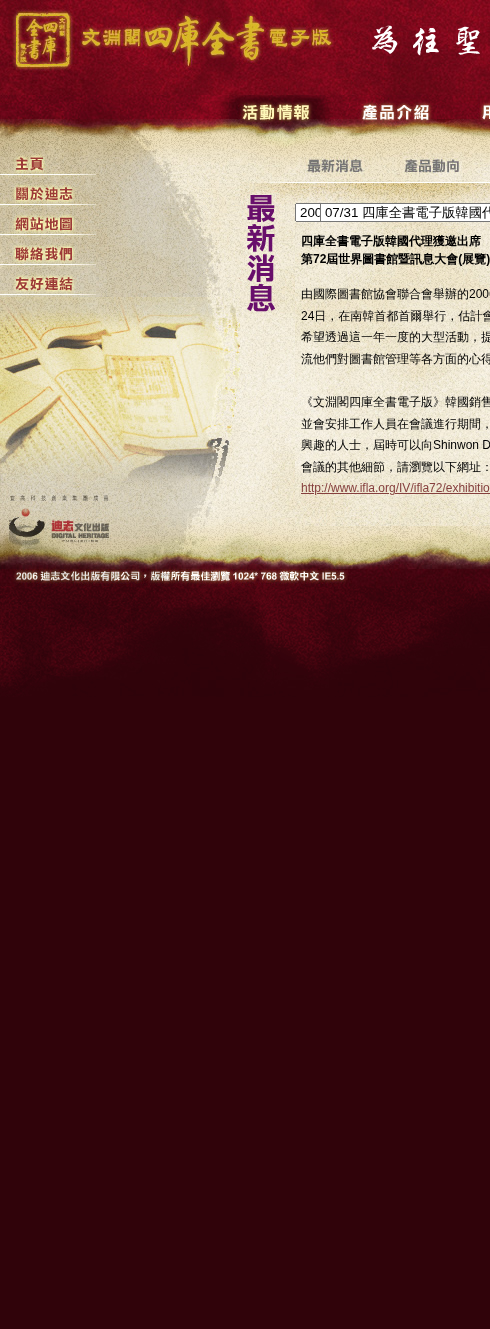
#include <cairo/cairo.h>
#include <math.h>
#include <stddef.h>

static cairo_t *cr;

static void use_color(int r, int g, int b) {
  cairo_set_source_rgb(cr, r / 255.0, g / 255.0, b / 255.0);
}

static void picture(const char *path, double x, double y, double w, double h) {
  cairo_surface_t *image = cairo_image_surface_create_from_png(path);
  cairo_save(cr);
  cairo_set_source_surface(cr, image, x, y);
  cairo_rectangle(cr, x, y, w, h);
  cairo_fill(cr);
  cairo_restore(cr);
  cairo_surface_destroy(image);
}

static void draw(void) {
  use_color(48, 3, 10);
  cairo_paint(cr);
  picture("img_01.png", 0, 585, 490, 112);
  picture("img_02.png", 0, 0, 490, 95);
  picture("img_03.png", 0, 95, 221, 38);
  picture("img_04.png", 221, 95, 120, 38);
  picture("img_05.png", 341, 95, 120, 38);
  picture("img_06.png", 461, 95, 29, 38);
  picture("img_07.png", 0, 133, 99, 44);
  picture("img_08.png", 99, 133, 141, 164);
  picture("img_09.png", 240, 133, 250, 436);
  picture("img_10.png", 305, 152, 60, 30);
  picture("img_11.png", 402, 152, 60, 30);
  picture("img_12.png", 240, 182, 45, 344);
  picture("img_13.png", 285, 182, 205, 21);
  picture("img_14.png", 285, 203, 205, 323);
  picture("img_15.png", 0, 177, 99, 30);
  picture("img_16.png", 0, 207, 99, 30);
  picture("img_17.png", 0, 237, 99, 30);
  picture("img_18.png", 0, 267, 99, 30);
  picture("img_19.png", 0, 297, 240, 196);
  picture("img_20.png", 0, 493, 240, 76);
  picture("img_21.png", 0, 569, 490, 16);
}

int main(void) {
  cairo_surface_t *surface = cairo_image_surface_create(CAIRO_FORMAT_RGB24, 490, 1329);
  cr = cairo_create(surface);
  cairo_font_options_t *options = cairo_font_options_create();
  cairo_font_options_set_hint_metrics(options, CAIRO_HINT_METRICS_OFF);
  cairo_font_options_set_hint_style(options, CAIRO_HINT_STYLE_NONE);
  cairo_set_font_options(cr, options);
  cairo_set_miter_limit(cr, 4);
  draw();
  cairo_surface_write_to_png(surface, "out.png");
  cairo_font_options_destroy(options);
  cairo_destroy(cr);
  cairo_surface_destroy(surface);
  return 0;
}
